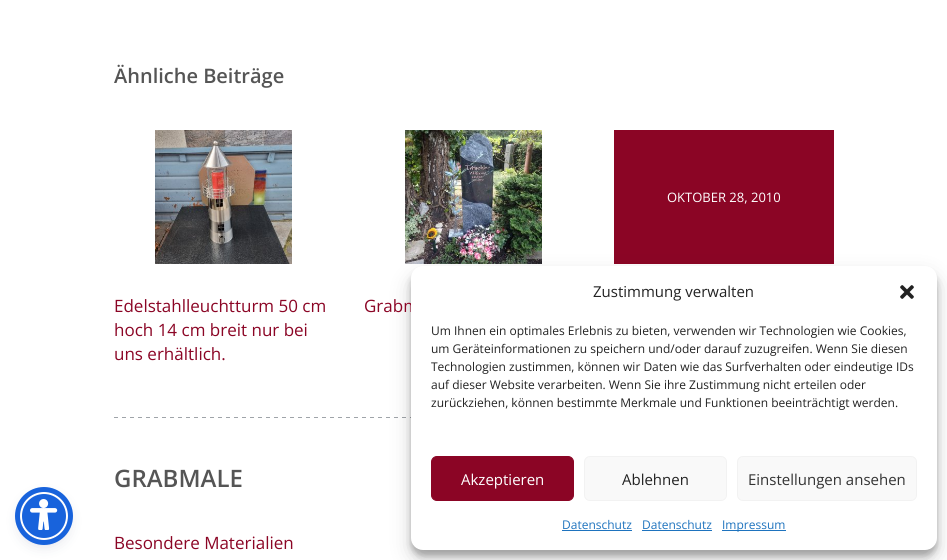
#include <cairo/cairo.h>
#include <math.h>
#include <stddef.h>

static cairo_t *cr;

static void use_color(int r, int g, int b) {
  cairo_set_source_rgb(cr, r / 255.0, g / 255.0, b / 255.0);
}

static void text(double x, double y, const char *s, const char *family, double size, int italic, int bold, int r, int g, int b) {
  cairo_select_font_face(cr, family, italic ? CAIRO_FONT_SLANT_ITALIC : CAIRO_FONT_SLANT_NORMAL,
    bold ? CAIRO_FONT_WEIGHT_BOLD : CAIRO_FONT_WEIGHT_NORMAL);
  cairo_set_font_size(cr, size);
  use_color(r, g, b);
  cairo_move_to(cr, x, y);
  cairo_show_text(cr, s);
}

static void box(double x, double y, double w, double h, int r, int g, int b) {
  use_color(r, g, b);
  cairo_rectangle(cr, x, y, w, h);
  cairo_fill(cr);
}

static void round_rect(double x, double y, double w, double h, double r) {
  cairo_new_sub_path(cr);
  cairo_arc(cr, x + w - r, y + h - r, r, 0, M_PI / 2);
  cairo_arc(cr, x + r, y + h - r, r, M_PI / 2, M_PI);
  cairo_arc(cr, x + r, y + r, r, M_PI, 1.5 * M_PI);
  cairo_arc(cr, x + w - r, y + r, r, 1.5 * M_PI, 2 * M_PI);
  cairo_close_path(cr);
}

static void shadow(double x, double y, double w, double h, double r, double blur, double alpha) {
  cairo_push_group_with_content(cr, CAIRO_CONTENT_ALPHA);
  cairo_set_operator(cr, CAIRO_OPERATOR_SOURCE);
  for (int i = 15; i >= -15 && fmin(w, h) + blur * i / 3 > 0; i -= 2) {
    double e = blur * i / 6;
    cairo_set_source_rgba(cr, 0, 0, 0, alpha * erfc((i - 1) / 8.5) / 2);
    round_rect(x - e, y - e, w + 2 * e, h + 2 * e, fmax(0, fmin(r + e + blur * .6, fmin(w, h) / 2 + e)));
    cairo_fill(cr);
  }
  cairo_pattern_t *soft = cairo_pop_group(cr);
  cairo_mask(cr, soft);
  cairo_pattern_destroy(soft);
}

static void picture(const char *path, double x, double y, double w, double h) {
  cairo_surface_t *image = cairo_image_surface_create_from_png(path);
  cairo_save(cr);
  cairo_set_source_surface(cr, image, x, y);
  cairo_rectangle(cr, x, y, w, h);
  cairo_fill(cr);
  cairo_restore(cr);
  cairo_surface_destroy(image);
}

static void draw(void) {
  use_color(255, 255, 255);
  cairo_paint(cr);
  picture("img_01.png", 114, 417, 297, 1);
  box(614, 130, 220, 134, 139, 5, 37);
  picture("img_02.png", 155, 130, 137, 134);
  picture("img_03.png", 405, 130, 137, 134);
  use_color(93, 100, 148);
  shadow(20, 494, 48, 48, 24, 2, 0.2);
  use_color(37, 44, 97);
  shadow(20, 497, 48, 48, 24, 7.5, 0.15);
  use_color(24, 99, 220);
  cairo_arc(cr, 44, 516, 23, 0, 2 * M_PI);
  cairo_fill_preserve(cr);
  use_color(255, 255, 255);
  cairo_stroke(cr);
  cairo_arc(cr, 44, 516, 26.5, 0, 2 * M_PI);
  use_color(24, 99, 220);
  cairo_set_line_width(cr, 5);
  cairo_stroke(cr);
  picture("img_04.png", 30, 499, 28, 31);
  use_color(0, 0, 0);
  shadow(411, 272, 526, 284, 12, 3, 0.23);
  shadow(411, 276, 526, 284, 12, 10, 0.19);
  text(114, 83, "Ähnliche Beiträge", "Open Sans SemiBold", 20, 0, 0, 85, 85, 85);
  text(667, 202, "OKTOBER 28, 2010", "Open Sans", 13, 0, 0, 255, 255, 255);
  text(114, 312, "Edelstahlleuchtturm 50 cm", "Open Sans", 17, 0, 0, 139, 5, 37);
  text(114, 336, "hoch 14 cm breit nur bei", "Open Sans", 17, 0, 0, 139, 5, 37);
  text(114, 360, "uns erhältlich.", "Open Sans", 17, 0, 0, 139, 5, 37);
  text(364, 312, "Grabm", "Open Sans", 17, 0, 0, 139, 5, 37);
  text(114, 487, "GRABMALE", "Open Sans SemiBold", 24, 0, 0, 85, 85, 85);
  text(114, 549, "Besondere Materialien", "Open Sans", 17, 0, 0, 139, 5, 37);
  use_color(255, 255, 255);
  round_rect(411, 266, 526, 284, 12);
  cairo_fill(cr);
  text(593, 297, "Zustimmung verwalten", "Open Sans", 15, 0, 0, 34, 34, 34);
  picture("img_05.png", 900, 285, 14, 14);
  text(431, 335, "Um Ihnen ein optimales Erlebnis zu bieten, verwenden wir Technologien wie Cookies,", "Open Sans", 12, 0, 0, 34, 34, 34);
  text(431, 353, "um Geräteinformationen zu speichern und/oder darauf zuzugreifen. Wenn Sie diesen", "Open Sans", 12, 0, 0, 34, 34, 34);
  text(431, 371, "Technologien zustimmen, können wir Daten wie das Surfverhalten oder eindeutige IDs", "Open Sans", 12, 0, 0, 34, 34, 34);
  text(431, 389, "auf dieser Website verarbeiten. Wenn Sie ihre Zustimmung nicht erteilen oder", "Open Sans", 12, 0, 0, 34, 34, 34);
  text(431, 407, "zurückziehen, können bestimmte Merkmale und Funktionen beeinträchtigt werden.", "Open Sans", 12, 0, 0, 34, 34, 34);
  use_color(139, 5, 37);
  round_rect(431.5, 456.5, 142, 44, 5.5);
  cairo_fill_preserve(cr);
  cairo_set_line_width(cr, 1);
  cairo_stroke(cr);
  text(461, 485, "Akzeptieren", "Open Sans", 15, 0, 0, 255, 255, 255);
  use_color(249, 249, 249);
  round_rect(584.5, 456.5, 142, 44, 5.5);
  cairo_fill_preserve(cr);
  use_color(242, 242, 242);
  cairo_stroke(cr);
  text(622, 485, "Ablehnen", "Open Sans", 15, 0, 0, 34, 34, 34);
  use_color(249, 249, 249);
  round_rect(737.5, 456.5, 179, 44, 5.5);
  cairo_fill_preserve(cr);
  use_color(242, 242, 242);
  cairo_stroke(cr);
  text(748, 485, "Einstellungen ansehen", "Open Sans", 15, 0, 0, 51, 51, 51);
  text(562, 529, "Datenschutz", "Open Sans", 12, 0, 0, 30, 115, 190);
  box(562, 530, 70, 1, 30, 115, 190);
  text(642, 529, "Datenschutz", "Open Sans", 12, 0, 0, 30, 115, 190);
  box(642, 530, 70, 1, 30, 115, 190);
  box(722, 530, 64, 1, 30, 115, 190);
  text(722, 529, "Impressum", "Open Sans", 12, 0, 0, 30, 115, 190);
}

int main(void) {
  cairo_surface_t *surface = cairo_image_surface_create(CAIRO_FORMAT_RGB24, 947, 560);
  cr = cairo_create(surface);
  cairo_font_options_t *options = cairo_font_options_create();
  cairo_font_options_set_hint_metrics(options, CAIRO_HINT_METRICS_OFF);
  cairo_font_options_set_hint_style(options, CAIRO_HINT_STYLE_NONE);
  cairo_set_font_options(cr, options);
  cairo_set_miter_limit(cr, 4);
  draw();
  cairo_surface_write_to_png(surface, "out.png");
  cairo_font_options_destroy(options);
  cairo_destroy(cr);
  cairo_surface_destroy(surface);
  return 0;
}
